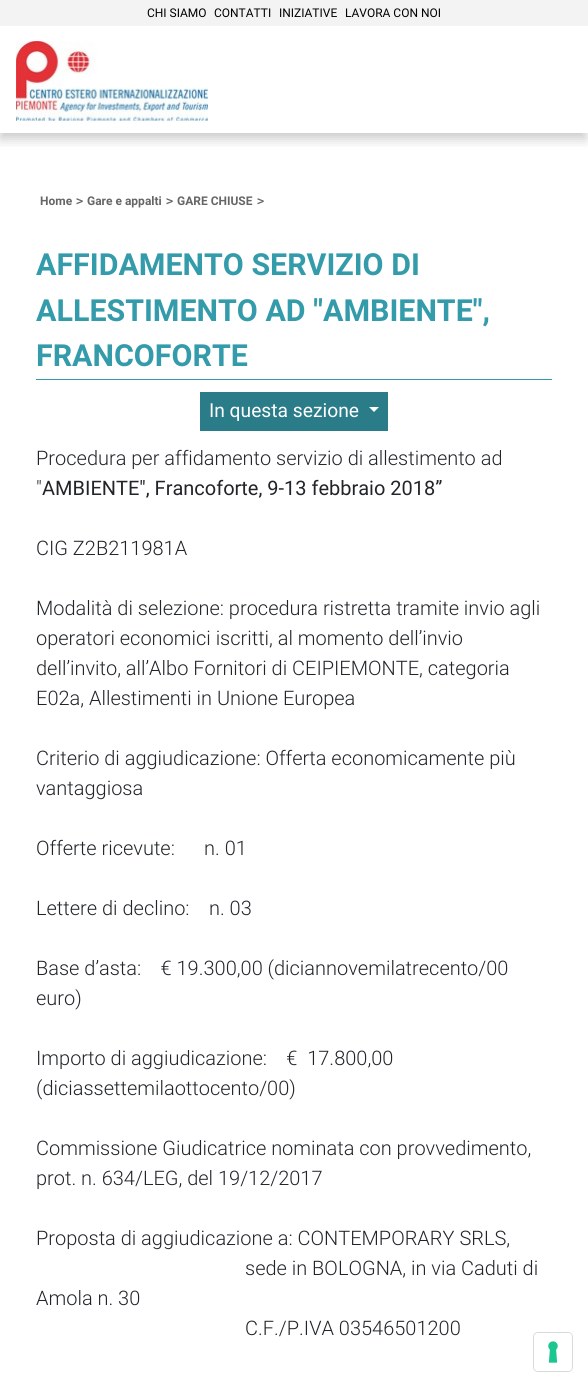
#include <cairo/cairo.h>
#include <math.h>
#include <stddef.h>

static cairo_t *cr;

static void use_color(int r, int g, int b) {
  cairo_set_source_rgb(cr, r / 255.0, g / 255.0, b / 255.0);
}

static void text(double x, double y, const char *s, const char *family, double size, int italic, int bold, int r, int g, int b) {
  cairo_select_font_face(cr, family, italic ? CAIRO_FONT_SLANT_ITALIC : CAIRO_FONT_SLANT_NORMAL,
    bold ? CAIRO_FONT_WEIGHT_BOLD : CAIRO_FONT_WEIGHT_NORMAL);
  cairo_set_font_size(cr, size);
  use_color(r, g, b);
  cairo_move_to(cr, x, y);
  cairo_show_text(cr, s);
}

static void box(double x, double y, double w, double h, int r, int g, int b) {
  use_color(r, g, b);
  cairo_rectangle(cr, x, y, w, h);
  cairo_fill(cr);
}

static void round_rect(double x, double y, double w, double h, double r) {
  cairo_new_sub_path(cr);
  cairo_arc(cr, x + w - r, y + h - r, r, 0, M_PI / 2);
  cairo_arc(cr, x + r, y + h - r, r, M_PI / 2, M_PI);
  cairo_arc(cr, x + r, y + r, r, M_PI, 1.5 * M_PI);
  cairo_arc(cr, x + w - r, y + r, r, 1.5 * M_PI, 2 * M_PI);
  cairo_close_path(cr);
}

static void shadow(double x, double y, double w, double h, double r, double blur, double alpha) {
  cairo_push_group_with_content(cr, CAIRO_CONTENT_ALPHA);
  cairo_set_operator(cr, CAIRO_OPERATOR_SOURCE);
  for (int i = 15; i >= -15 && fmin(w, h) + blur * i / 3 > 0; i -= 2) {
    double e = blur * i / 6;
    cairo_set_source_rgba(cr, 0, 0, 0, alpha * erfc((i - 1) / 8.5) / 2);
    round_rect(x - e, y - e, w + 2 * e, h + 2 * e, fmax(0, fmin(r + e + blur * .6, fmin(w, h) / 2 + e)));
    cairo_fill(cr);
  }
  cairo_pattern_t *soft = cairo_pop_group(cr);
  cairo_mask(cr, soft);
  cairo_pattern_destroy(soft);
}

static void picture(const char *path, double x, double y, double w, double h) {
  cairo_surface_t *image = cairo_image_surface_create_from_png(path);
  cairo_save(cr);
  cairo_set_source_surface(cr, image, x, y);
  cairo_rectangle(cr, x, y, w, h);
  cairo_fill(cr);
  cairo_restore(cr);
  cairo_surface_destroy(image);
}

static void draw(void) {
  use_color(255, 255, 255);
  cairo_paint(cr);
  cairo_save(cr);
  cairo_rectangle(cr, 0, 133, 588, 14);
  cairo_clip(cr);
  use_color(0, 0, 0);
  shadow(0, 8, 586, 131, 0, 6, 0.21);
  cairo_restore(cr);
  box(0, 0, 588, 26, 243, 243, 243);
  picture("img_01.png", 16, 41, 192, 80);
  box(36, 379, 516, 1, 52, 155, 171);
  box(200, 392, 188, 39, 42, 124, 137);
  use_color(255, 255, 255);
  cairo_new_path(cr);
  cairo_move_to(cr, 369, 407);
  cairo_line_to(cr, 379, 407);
  cairo_line_to(cr, 374, 412);
  cairo_close_path(cr);
  cairo_fill(cr);
  round_rect(533.5, 1332.5, 39, 39, 4.5);
  use_color(217, 217, 217);
  cairo_set_line_width(cr, 1);
  cairo_stroke(cr);
  use_color(255, 255, 255);
  round_rect(534, 1333, 38, 38, 4);
  cairo_fill(cr);
  picture("img_02.png", 548, 1341, 10, 22);
  text(147, 17, "CHI SIAMO", "Roboto", 12, 0, 0, 0, 0, 0);
  text(214, 17, "CONTATTI", "Roboto", 12, 0, 0, 0, 0, 0);
  text(279, 17, "INIZIATIVE", "Roboto", 12, 0, 0, 0, 0, 0);
  text(345, 17, "LAVORA CON NOI", "Roboto", 12, 0, 0, 0, 0, 0);
  text(40, 205, "Home", "Roboto", 12, 0, 1, 102, 102, 102);
  text(76, 205, ">", "DejaVu Sans Mono", 12, 0, 1, 102, 102, 102);
  text(87, 205, "Gare e appalti", "Roboto", 12, 0, 1, 102, 102, 102);
  text(166, 205, ">", "DejaVu Sans Mono", 12, 0, 1, 102, 102, 102);
  text(177, 205, "GARE CHIUSE", "Roboto", 12, 0, 1, 102, 102, 102);
  text(257, 205, ">", "DejaVu Sans Mono", 12, 0, 1, 102, 102, 102);
  text(36, 275, "AFFIDAMENTO SERVIZIO DI", "Roboto", 30.4, 0, 1, 52, 155, 171);
  text(36, 321, "ALLESTIMENTO AD \"AMBIENTE\",", "Roboto", 30.4, 0, 1, 52, 155, 171);
  text(36, 366, "FRANCOFORTE", "Roboto", 30.4, 0, 1, 52, 155, 171);
  text(209, 417, "In questa sezione", "Roboto", 19.25, 0, 0, 255, 255, 255);
  text(36, 465, "Procedura per affidamento servizio di allestimento ad", "Roboto Light", 20, 0, 0, 33, 37, 41);
  text(36, 495, "\"", "Roboto Light", 20, 0, 0, 33, 37, 41);
  text(42, 495, "AMBIENTE\", Francoforte, 9-13 febbraio 2018”", "Roboto", 20, 0, 0, 33, 37, 41);
  text(36, 555, "CIG Z2B211981A", "Roboto Light", 20, 0, 0, 33, 37, 41);
  text(36, 615, "Modalità di selezione: procedura ristretta tramite invio agli", "Roboto Light", 20, 0, 0, 33, 37, 41);
  text(36, 645, "operatori economici iscritti, al momento dell’invio", "Roboto Light", 20, 0, 0, 33, 37, 41);
  text(36, 675, "dell’invito, all’Albo Fornitori di CEIPIEMONTE, categoria", "Roboto Light", 20, 0, 0, 33, 37, 41);
  text(36, 705, "E02a, Allestimenti in Unione Europea", "Roboto Light", 20, 0, 0, 33, 37, 41);
  text(36, 765, "Criterio di aggiudicazione: Offerta economicamente più", "Roboto Light", 20, 0, 0, 33, 37, 41);
  text(36, 795, "vantaggiosa", "Roboto Light", 20, 0, 0, 33, 37, 41);
  text(36, 855, "Offerte ricevute:      n. 01", "Roboto Light", 20, 0, 0, 33, 37, 41);
  text(36, 915, "Lettere di declino:    n. 03", "Roboto Light", 20, 0, 0, 33, 37, 41);
  text(36, 975, "Base d’asta:    € 19.300,00 (diciannovemilatrecento/00", "Roboto Light", 20, 0, 0, 33, 37, 41);
  text(36, 1005, "euro)", "Roboto Light", 20, 0, 0, 33, 37, 41);
  text(36, 1065, "Importo di aggiudicazione:    €  17.800,00", "Roboto Light", 20, 0, 0, 33, 37, 41);
  text(36, 1095, "(diciassettemilaottocento/00)", "Roboto Light", 20, 0, 0, 33, 37, 41);
  text(36, 1155, "Commissione Giudicatrice nominata con provvedimento,", "Roboto Light", 20, 0, 0, 33, 37, 41);
  text(36, 1185, "prot. n. 634/LEG, del 19/12/2017", "Roboto Light", 20, 0, 0, 33, 37, 41);
  text(36, 1245, "Proposta di aggiudicazione a: CONTEMPORARY SRLS,", "Roboto Light", 20, 0, 0, 33, 37, 41);
  text(245, 1275, "sede in BOLOGNA, in via Caduti di", "Roboto Light", 20, 0, 0, 33, 37, 41);
  text(36, 1305, "Amola n. 30", "Roboto Light", 20, 0, 0, 33, 37, 41);
  text(245, 1335, "C.F./P.IVA 03546501200", "Roboto Light", 20, 0, 0, 33, 37, 41);
}

int main(void) {
  cairo_surface_t *surface = cairo_image_surface_create(CAIRO_FORMAT_RGB24, 588, 1387);
  cr = cairo_create(surface);
  cairo_font_options_t *options = cairo_font_options_create();
  cairo_font_options_set_hint_metrics(options, CAIRO_HINT_METRICS_OFF);
  cairo_font_options_set_hint_style(options, CAIRO_HINT_STYLE_NONE);
  cairo_set_font_options(cr, options);
  cairo_set_miter_limit(cr, 4);
  draw();
  cairo_surface_write_to_png(surface, "out.png");
  cairo_font_options_destroy(options);
  cairo_destroy(cr);
  cairo_surface_destroy(surface);
  return 0;
}
